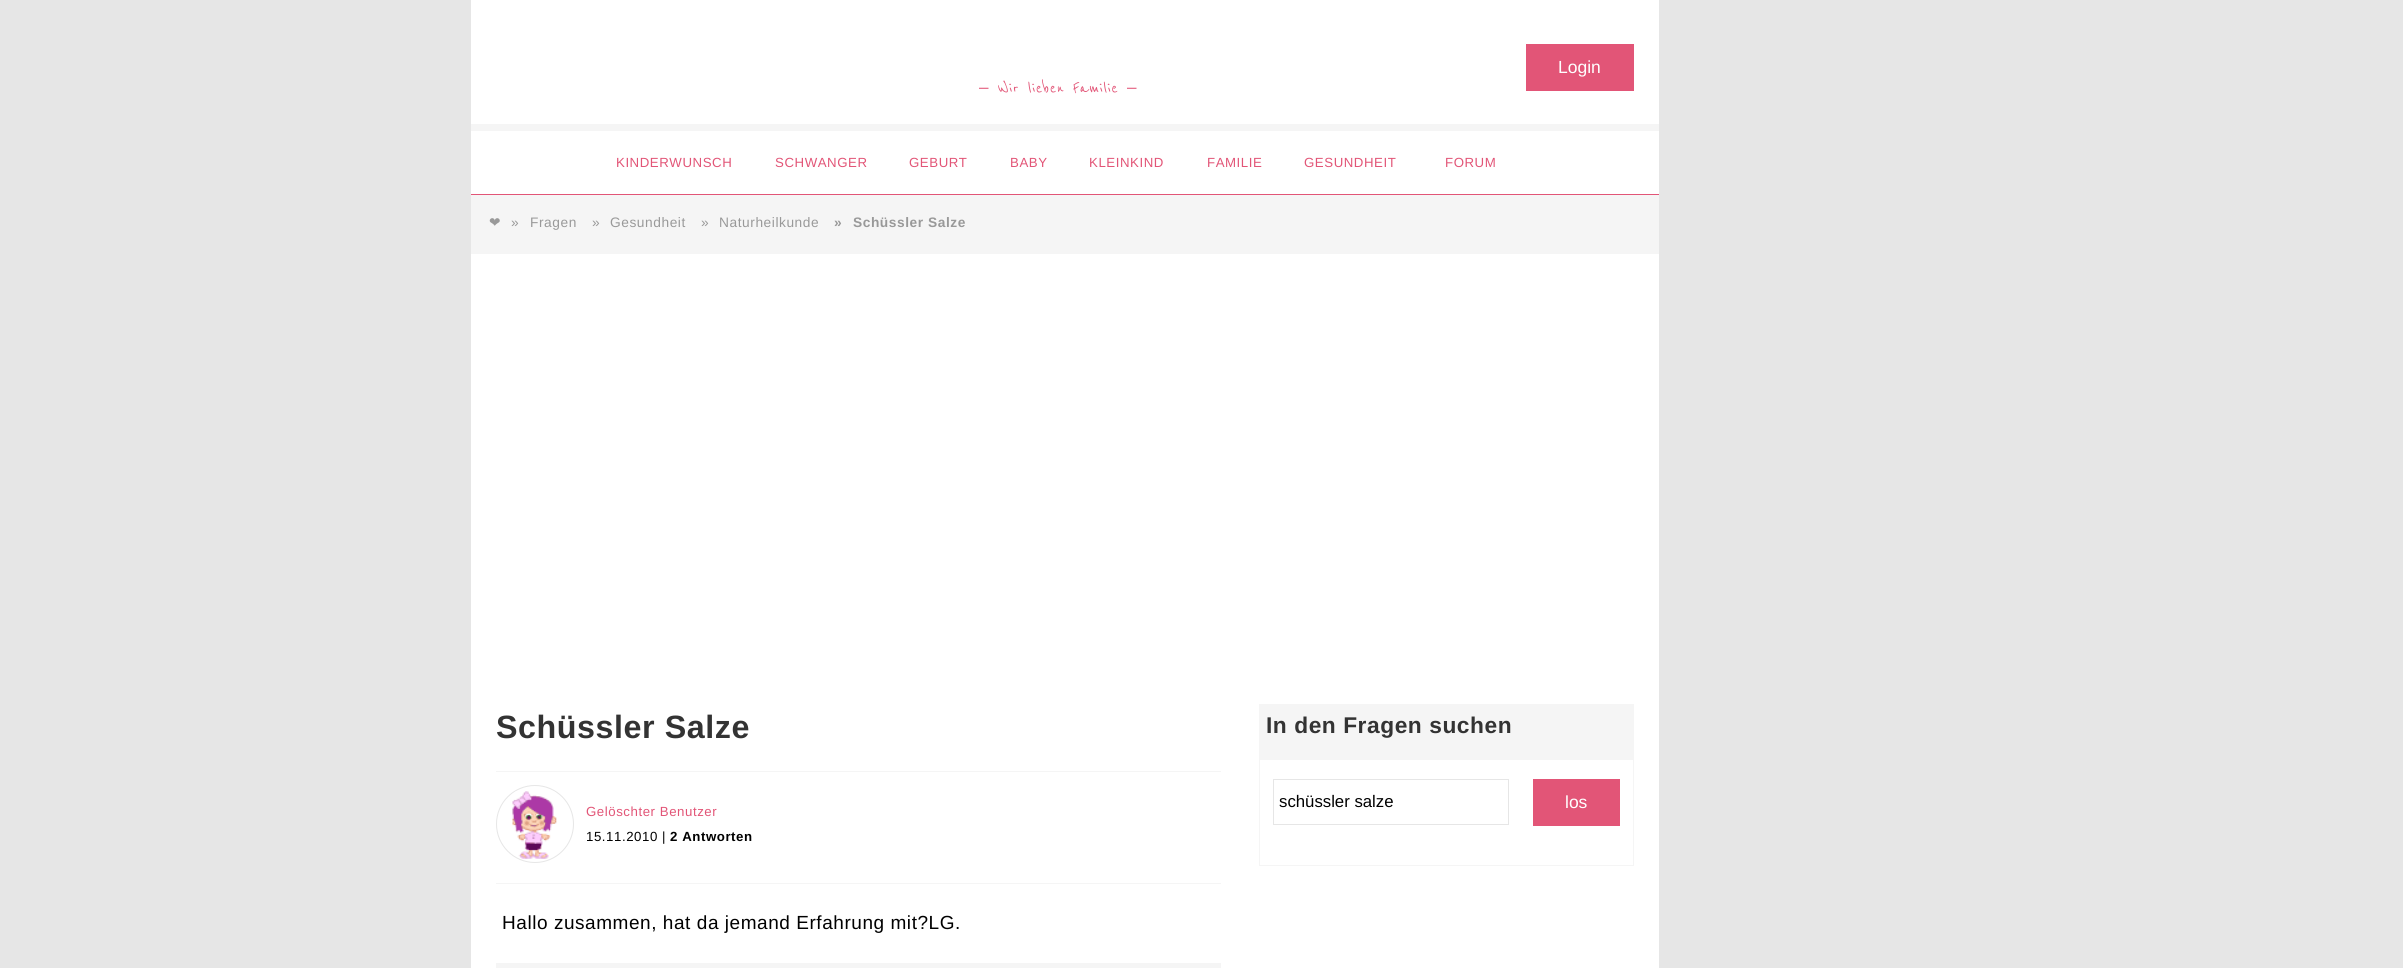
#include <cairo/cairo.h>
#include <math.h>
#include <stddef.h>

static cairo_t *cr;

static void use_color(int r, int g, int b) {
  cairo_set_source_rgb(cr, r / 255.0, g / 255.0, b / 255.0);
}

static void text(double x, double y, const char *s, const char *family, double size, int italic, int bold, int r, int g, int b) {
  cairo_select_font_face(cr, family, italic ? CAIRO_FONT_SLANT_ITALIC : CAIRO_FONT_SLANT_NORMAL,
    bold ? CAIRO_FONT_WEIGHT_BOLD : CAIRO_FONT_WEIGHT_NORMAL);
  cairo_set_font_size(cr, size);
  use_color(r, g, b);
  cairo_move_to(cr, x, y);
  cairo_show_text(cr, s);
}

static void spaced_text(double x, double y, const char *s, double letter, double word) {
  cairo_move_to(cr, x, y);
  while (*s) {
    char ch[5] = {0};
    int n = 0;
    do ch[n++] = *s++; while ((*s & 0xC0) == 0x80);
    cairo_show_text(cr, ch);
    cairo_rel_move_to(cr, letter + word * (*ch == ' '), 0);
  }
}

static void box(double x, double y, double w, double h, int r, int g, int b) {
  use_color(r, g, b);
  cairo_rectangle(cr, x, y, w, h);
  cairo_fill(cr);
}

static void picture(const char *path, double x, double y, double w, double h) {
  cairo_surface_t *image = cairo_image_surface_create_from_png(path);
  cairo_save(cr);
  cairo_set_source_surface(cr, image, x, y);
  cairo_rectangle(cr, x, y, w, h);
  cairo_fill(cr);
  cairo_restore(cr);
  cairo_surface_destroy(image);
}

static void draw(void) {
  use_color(230, 230, 230);
  cairo_paint(cr);
  box(471, 0, 1188, 968, 255, 255, 255);
  box(1526, 44, 108, 47, 226, 85, 119);
  box(471, 124, 1188, 7, 245, 245, 245);
  box(471, 194, 1188, 1, 226, 85, 119);
  box(471, 195, 1188, 59, 245, 245, 245);
  box(496, 771, 725, 1, 245, 245, 245);
  box(496, 883, 725, 1, 245, 245, 245);
  cairo_arc(cr, 535, 824, 38.5, 0, 2 * M_PI);
  use_color(230, 230, 230);
  cairo_set_line_width(cr, 1);
  cairo_stroke(cr);
  picture("img_01.png", 512, 791, 45, 68);
  box(496, 963, 725, 5, 245, 245, 245);
  cairo_rectangle(cr, 1259.5, 704.5, 374, 161);
  cairo_stroke(cr);
  box(1260, 705, 373, 55, 245, 245, 245);
  cairo_rectangle(cr, 1273.5, 779.5, 235, 45);
  use_color(230, 230, 230);
  cairo_stroke(cr);
  box(1533, 779, 87, 47, 226, 85, 119);
  text(1558, 73, "Login", "Liberation Sans", 17.5, 0, 0, 255, 255, 255);
  cairo_select_font_face(cr, "FreeSans", CAIRO_FONT_SLANT_NORMAL, CAIRO_FONT_WEIGHT_NORMAL);
  cairo_set_font_size(cr, 19);
  use_color(226, 85, 119);
  spaced_text(979, 93, "⎯", 0.55, 0);
  cairo_select_font_face(cr, "Reenie Beanie Medium", CAIRO_FONT_SLANT_NORMAL, CAIRO_FONT_WEIGHT_NORMAL);
  spaced_text(998, 93, "Wir lieben Familie", 0.55, 0);
  cairo_select_font_face(cr, "FreeSans", CAIRO_FONT_SLANT_NORMAL, CAIRO_FONT_WEIGHT_NORMAL);
  spaced_text(1127, 93, "⎯", 0.55, 0);
  cairo_select_font_face(cr, "Liberation Sans", CAIRO_FONT_SLANT_NORMAL, CAIRO_FONT_WEIGHT_NORMAL);
  cairo_set_font_size(cr, 13.25);
  spaced_text(616, 167, "KINDERWUNSCH", 0.55, 0);
  spaced_text(775, 167, "SCHWANGER", 0.55, 0);
  spaced_text(909, 167, "GEBURT", 0.55, 0);
  spaced_text(1010, 167, "BABY", 0.55, 0);
  spaced_text(1089, 167, "KLEINKIND", 0.55, 0);
  spaced_text(1207, 167, "FAMILIE", 0.55, 0);
  spaced_text(1304, 167, "GESUNDHEIT", 0.55, 0);
  spaced_text(1445, 167, "FORUM", 0.55, 0);
  cairo_select_font_face(cr, "DejaVu Sans", CAIRO_FONT_SLANT_NORMAL, CAIRO_FONT_WEIGHT_NORMAL);
  cairo_set_font_size(cr, 13.75);
  use_color(153, 153, 153);
  spaced_text(489, 227, "❤", 0.55, 0);
  cairo_select_font_face(cr, "Liberation Sans", CAIRO_FONT_SLANT_NORMAL, CAIRO_FONT_WEIGHT_NORMAL);
  spaced_text(511, 227, "»", 0.55, 0);
  spaced_text(530, 227, "Fragen", 0.55, 0);
  spaced_text(592, 227, "»", 0.55, 0);
  spaced_text(610, 227, "Gesundheit", 0.55, 0);
  spaced_text(701, 227, "»", 0.55, 0);
  spaced_text(719, 227, "Naturheilkunde", 0.55, 0);
  cairo_select_font_face(cr, "Liberation Sans", CAIRO_FONT_SLANT_NORMAL, CAIRO_FONT_WEIGHT_BOLD);
  spaced_text(834, 227, "»", 0.55, 0);
  spaced_text(853, 227, "Schüssler Salze", 0.55, 0);
  cairo_set_font_size(cr, 32.25);
  use_color(51, 51, 51);
  spaced_text(496, 738, "Schüssler Salze", 0.55, 0);
  cairo_select_font_face(cr, "Liberation Sans", CAIRO_FONT_SLANT_NORMAL, CAIRO_FONT_WEIGHT_NORMAL);
  cairo_set_font_size(cr, 13.25);
  use_color(226, 85, 119);
  spaced_text(586, 816, "Gelöschter Benutzer", 0.55, 0);
  use_color(0, 0, 0);
  spaced_text(586, 841, "15.11.2010 |", 0.55, 0);
  cairo_select_font_face(cr, "Liberation Sans", CAIRO_FONT_SLANT_NORMAL, CAIRO_FONT_WEIGHT_BOLD);
  spaced_text(670, 841, "2 Antworten", 0.55, 0);
  cairo_select_font_face(cr, "Liberation Sans", CAIRO_FONT_SLANT_NORMAL, CAIRO_FONT_WEIGHT_NORMAL);
  cairo_set_font_size(cr, 19);
  spaced_text(502, 929, "Hallo zusammen, hat da jemand Erfahrung mit?LG.", 0.55, 0);
  cairo_select_font_face(cr, "Liberation Sans", CAIRO_FONT_SLANT_NORMAL, CAIRO_FONT_WEIGHT_BOLD);
  cairo_set_font_size(cr, 22.75);
  use_color(51, 51, 51);
  spaced_text(1266, 733, "In den Fragen suchen", 0.55, 0);
  text(1279, 807, "schüssler salze", "Liberation Sans", 16.75, 0, 0, 0, 0, 0);
  text(1565, 808, "los", "Liberation Sans", 17.5, 0, 0, 255, 255, 255);
}

int main(void) {
  cairo_surface_t *surface = cairo_image_surface_create(CAIRO_FORMAT_RGB24, 2403, 968);
  cr = cairo_create(surface);
  cairo_font_options_t *options = cairo_font_options_create();
  cairo_font_options_set_hint_metrics(options, CAIRO_HINT_METRICS_OFF);
  cairo_font_options_set_hint_style(options, CAIRO_HINT_STYLE_NONE);
  cairo_set_font_options(cr, options);
  cairo_set_miter_limit(cr, 4);
  draw();
  cairo_surface_write_to_png(surface, "out.png");
  cairo_font_options_destroy(options);
  cairo_destroy(cr);
  cairo_surface_destroy(surface);
  return 0;
}
